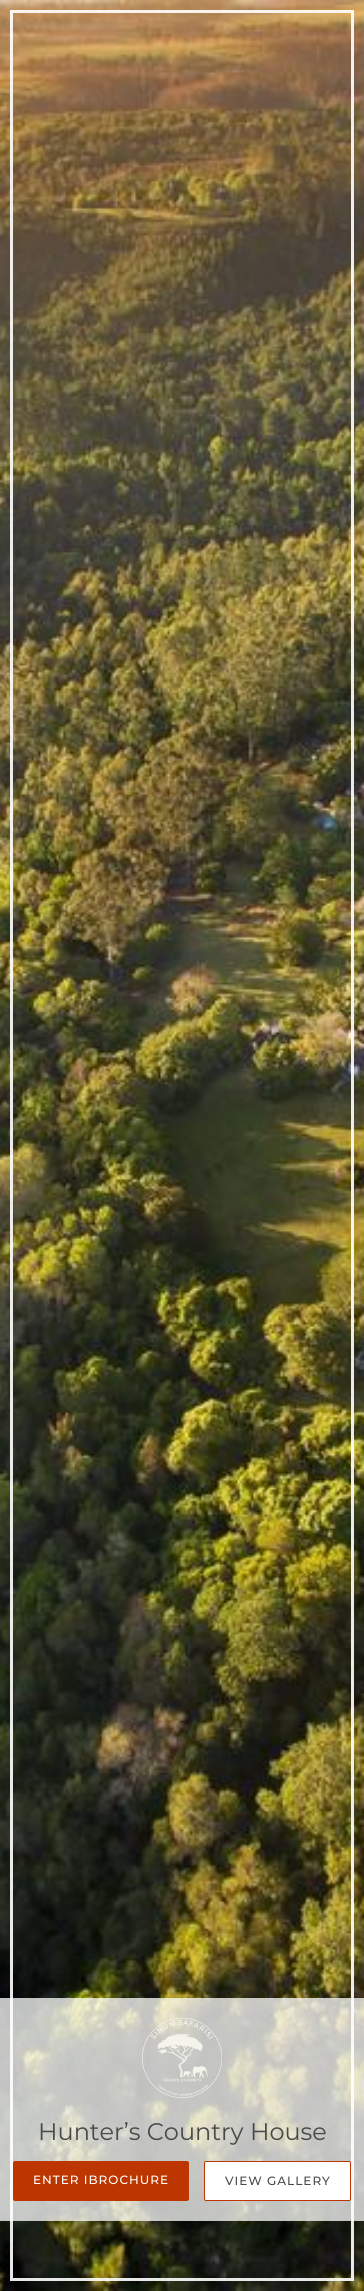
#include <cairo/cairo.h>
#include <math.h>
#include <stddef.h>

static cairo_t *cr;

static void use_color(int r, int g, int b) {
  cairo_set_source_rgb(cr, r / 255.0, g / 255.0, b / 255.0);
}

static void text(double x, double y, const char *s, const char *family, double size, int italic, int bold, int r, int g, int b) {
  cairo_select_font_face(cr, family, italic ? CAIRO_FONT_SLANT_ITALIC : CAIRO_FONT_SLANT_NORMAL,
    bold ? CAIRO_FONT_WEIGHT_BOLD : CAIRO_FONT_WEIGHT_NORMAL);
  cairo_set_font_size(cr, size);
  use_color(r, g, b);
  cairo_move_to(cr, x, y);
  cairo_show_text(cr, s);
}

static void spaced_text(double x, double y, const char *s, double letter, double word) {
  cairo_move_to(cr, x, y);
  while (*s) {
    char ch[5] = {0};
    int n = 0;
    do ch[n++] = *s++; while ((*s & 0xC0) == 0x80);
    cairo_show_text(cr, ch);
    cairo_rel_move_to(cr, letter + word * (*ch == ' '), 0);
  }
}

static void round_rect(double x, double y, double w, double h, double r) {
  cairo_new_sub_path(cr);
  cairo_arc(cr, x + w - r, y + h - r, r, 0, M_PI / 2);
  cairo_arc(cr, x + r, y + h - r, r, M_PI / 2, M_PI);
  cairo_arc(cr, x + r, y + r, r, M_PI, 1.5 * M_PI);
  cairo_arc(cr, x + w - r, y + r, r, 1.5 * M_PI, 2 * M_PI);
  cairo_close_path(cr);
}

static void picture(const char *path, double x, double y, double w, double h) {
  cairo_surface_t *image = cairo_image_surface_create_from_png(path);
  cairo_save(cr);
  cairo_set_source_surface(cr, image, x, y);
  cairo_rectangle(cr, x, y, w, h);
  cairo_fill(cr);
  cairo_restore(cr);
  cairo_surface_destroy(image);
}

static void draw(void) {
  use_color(255, 255, 255);
  cairo_paint(cr);
  picture("img_01.png", 0, 0, 364, 2291);
  cairo_rectangle(cr, 11.5, 11.5, 341, 2268);
  cairo_set_source_rgba(cr, 1, 1, 1, 0.9);
  cairo_set_line_width(cr, 3);
  cairo_stroke(cr);
  cairo_set_source_rgba(cr, 1, 1, 1, 0.75);
  cairo_rectangle(cr, 0, 1998, 364, 223);
  cairo_fill(cr);
  picture("img_02.png", 142, 2018, 80, 80);
  use_color(189, 54, 0);
  round_rect(13, 2161, 176, 40, 2);
  cairo_fill(cr);
  use_color(255, 255, 255);
  round_rect(204.5, 2161.5, 146, 39, 1.5);
  cairo_fill_preserve(cr);
  use_color(189, 54, 0);
  cairo_set_line_width(cr, 1);
  cairo_stroke(cr);
  text(38, 2140, "Hunter’s Country House", "Montserrat", 24, 0, 0, 74, 74, 74);
  cairo_select_font_face(cr, "Montserrat Medium", CAIRO_FONT_SLANT_NORMAL, CAIRO_FONT_WEIGHT_NORMAL);
  cairo_set_font_size(cr, 12);
  use_color(255, 255, 255);
  spaced_text(33, 2184, "ENTER IBROCHURE", 1, 0);
  use_color(74, 74, 74);
  spaced_text(225, 2185, "VIEW GALLERY", 1, 0);
}

int main(void) {
  cairo_surface_t *surface = cairo_image_surface_create(CAIRO_FORMAT_RGB24, 364, 2291);
  cr = cairo_create(surface);
  cairo_font_options_t *options = cairo_font_options_create();
  cairo_font_options_set_hint_metrics(options, CAIRO_HINT_METRICS_OFF);
  cairo_font_options_set_hint_style(options, CAIRO_HINT_STYLE_NONE);
  cairo_set_font_options(cr, options);
  cairo_set_miter_limit(cr, 4);
  draw();
  cairo_surface_write_to_png(surface, "out.png");
  cairo_font_options_destroy(options);
  cairo_destroy(cr);
  cairo_surface_destroy(surface);
  return 0;
}
